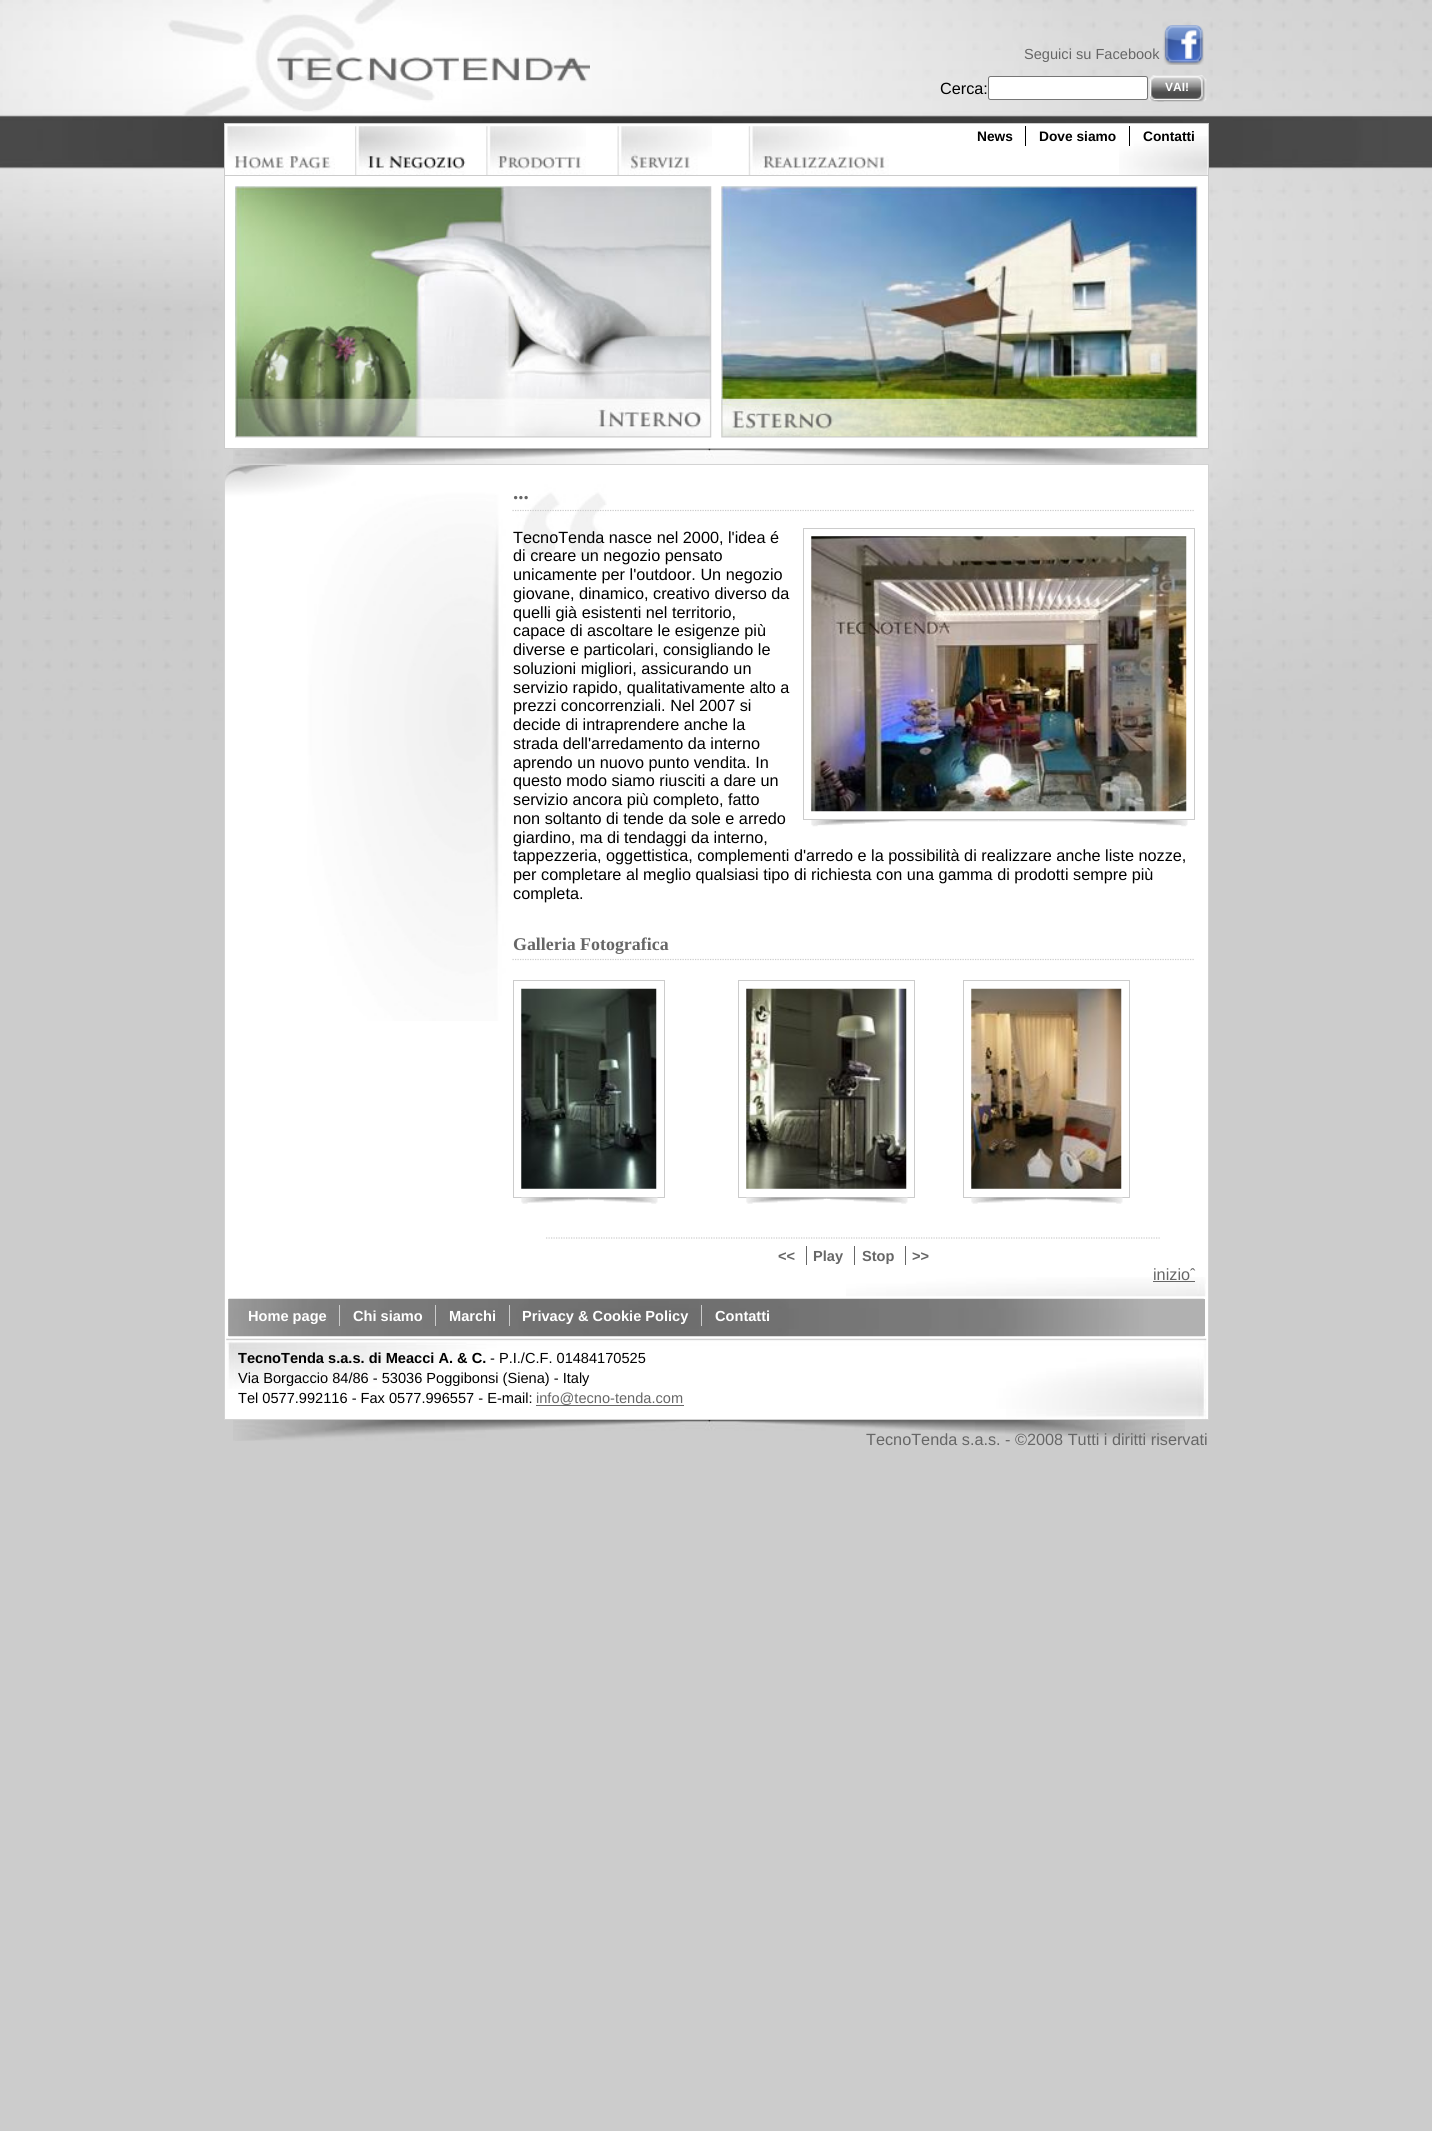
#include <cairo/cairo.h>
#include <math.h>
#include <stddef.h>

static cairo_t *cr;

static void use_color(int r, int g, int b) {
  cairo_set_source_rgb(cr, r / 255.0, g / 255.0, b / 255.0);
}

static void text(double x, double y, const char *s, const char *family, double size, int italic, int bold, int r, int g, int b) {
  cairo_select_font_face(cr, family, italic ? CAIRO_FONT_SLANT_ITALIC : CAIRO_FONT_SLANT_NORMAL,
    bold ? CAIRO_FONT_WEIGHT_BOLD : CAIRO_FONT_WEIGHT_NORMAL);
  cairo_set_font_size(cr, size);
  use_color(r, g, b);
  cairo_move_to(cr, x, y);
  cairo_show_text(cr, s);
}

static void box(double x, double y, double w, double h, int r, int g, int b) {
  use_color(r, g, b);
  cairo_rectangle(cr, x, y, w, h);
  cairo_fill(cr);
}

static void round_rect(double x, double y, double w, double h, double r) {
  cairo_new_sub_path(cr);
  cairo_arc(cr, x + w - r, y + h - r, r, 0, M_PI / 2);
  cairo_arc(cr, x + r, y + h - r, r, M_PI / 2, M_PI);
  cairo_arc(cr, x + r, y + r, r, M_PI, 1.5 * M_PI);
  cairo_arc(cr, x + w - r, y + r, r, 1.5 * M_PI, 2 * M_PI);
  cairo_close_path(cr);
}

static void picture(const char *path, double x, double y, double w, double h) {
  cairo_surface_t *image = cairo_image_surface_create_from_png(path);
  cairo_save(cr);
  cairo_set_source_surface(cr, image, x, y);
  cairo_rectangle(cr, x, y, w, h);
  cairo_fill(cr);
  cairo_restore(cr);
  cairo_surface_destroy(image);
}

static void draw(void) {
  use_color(204, 204, 204);
  cairo_paint(cr);
  picture("img_01.png", 0, 0, 1432, 740);
  picture("img_02.png", 1163, 25, 41, 40);
  picture("img_03.png", 277, 57, 313, 25);
  use_color(255, 255, 255);
  round_rect(988.5, 76.5, 159, 23, 2);
  cairo_fill_preserve(cr);
  use_color(118, 118, 118);
  cairo_set_line_width(cr, 1);
  cairo_stroke(cr);
  picture("img_04.png", 1148, 75, 16, 27);
  picture("img_05.png", 1157, 75, 50, 27);
  use_color(255, 255, 255);
  cairo_rectangle(cr, 224.5, 123.5, 984, 325);
  cairo_fill_preserve(cr);
  use_color(204, 204, 204);
  cairo_stroke(cr);
  picture("img_06.png", 1119, 136, 89, 39);
  box(225, 175, 983, 1, 204, 204, 204);
  picture("img_07.png", 227, 126, 108, 49);
  picture("img_08.png", 355, 126, 111, 49);
  picture("img_09.png", 486, 126, 100, 49);
  picture("img_10.png", 617, 126, 95, 49);
  picture("img_11.png", 748, 126, 141, 49);
  box(1025, 126, 1, 20, 0, 0, 0);
  box(1129, 126, 1, 20, 0, 0, 0);
  picture("img_12.png", 235, 186, 477, 252);
  picture("img_13.png", 721, 186, 477, 252);
  picture("img_14.png", 233, 448, 960, 16);
  box(225, 465, 983, 954, 255, 255, 255);
  picture("img_15.png", 225, 465, 382, 556);
  cairo_rectangle(cr, 224.5, 464.5, 984, 955);
  use_color(211, 211, 211);
  cairo_stroke(cr);
  cairo_new_path(cr);
  cairo_move_to(cr, 512.5, 510.5);
  cairo_line_to(cr, 1195, 510.5);
  use_color(204, 204, 204);
  cairo_set_line_width(cr, 1.2);
  cairo_set_dash(cr, (double[]){1.25, 1.25}, 2, 0);
  cairo_stroke(cr);
  cairo_rectangle(cr, 803.5, 528.5, 391, 291);
  cairo_set_line_width(cr, 1);
  cairo_set_dash(cr, NULL, 0, 0);
  cairo_stroke(cr);
  picture("img_16.png", 811, 536, 376, 276);
  picture("img_17.png", 811, 820, 188, 7);
  picture("img_18.png", 999, 820, 189, 7);
  cairo_new_path(cr);
  cairo_move_to(cr, 512.5, 959.5);
  cairo_line_to(cr, 1195, 959.5);
  cairo_set_line_width(cr, 1.2);
  cairo_set_dash(cr, (double[]){1.25, 1.25}, 2, 0);
  cairo_stroke(cr);
  cairo_rectangle(cr, 513.5, 980.5, 151, 217);
  cairo_set_line_width(cr, 1);
  cairo_set_dash(cr, NULL, 0, 0);
  cairo_stroke(cr);
  picture("img_19.png", 521, 988, 136, 201);
  picture("img_20.png", 521, 1197, 68, 7);
  picture("img_21.png", 588, 1197, 70, 7);
  cairo_rectangle(cr, 738.5, 980.5, 176, 217);
  cairo_stroke(cr);
  picture("img_22.png", 746, 988, 161, 201);
  picture("img_23.png", 746, 1197, 81, 7);
  picture("img_24.png", 826, 1197, 82, 7);
  cairo_rectangle(cr, 963.5, 980.5, 166, 217);
  cairo_stroke(cr);
  picture("img_25.png", 971, 988, 151, 201);
  picture("img_26.png", 971, 1197, 76, 7);
  picture("img_27.png", 1046, 1197, 77, 7);
  cairo_new_path(cr);
  cairo_move_to(cr, 546, 1238);
  cairo_line_to(cr, 1161, 1238);
  cairo_set_line_width(cr, 1.2);
  cairo_set_dash(cr, (double[]){1.25, 1.25}, 2, 0);
  cairo_stroke(cr);
  box(806, 1246, 1, 19, 102, 102, 102);
  box(854, 1246, 1, 19, 102, 102, 102);
  box(905, 1246, 1, 19, 102, 102, 102);
  picture("img_28.png", 846, 1277, 360, 20);
  box(1153, 1281, 42, 1, 102, 102, 102);
  box(228, 1299, 977, 37, 177, 177, 177);
  picture("img_29.png", 228, 1298, 976, 39);
  box(339, 1305, 1, 21, 204, 204, 204);
  box(435, 1305, 1, 21, 204, 204, 204);
  box(509, 1305, 1, 21, 204, 204, 204);
  box(701, 1305, 1, 21, 204, 204, 204);
  picture("img_30.png", 226, 1338, 981, 81);
  box(536, 1405, 148, 1, 102, 102, 102);
  picture("img_31.png", 233, 1420, 952, 21);
  text(1024, 59, "Seguici su Facebook", "Liberation Sans", 14.6, 0, 0, 102, 102, 102);
  text(940, 94, "Cerca:", "Liberation Sans", 16.25, 0, 0, 0, 0, 0);
  text(1165, 91, "VAI!", "Liberation Sans", 12, 0, 1, 255, 255, 255);
  text(977, 141, "News", "Liberation Sans", 13.75, 0, 1, 0, 0, 0);
  text(1039, 141, "Dove siamo", "Liberation Sans", 13.75, 0, 1, 0, 0, 0);
  text(1143, 141, "Contatti", "Liberation Sans", 13.75, 0, 1, 0, 0, 0);
  text(513, 499, "...", "Liberation Serif", 21, 0, 1, 102, 102, 102);
  text(513, 543, "TecnoTenda nasce nel 2000, l'idea é", "Liberation Sans", 16.25, 0, 0, 0, 0, 0);
  text(513, 561, "di creare un negozio pensato", "Liberation Sans", 16.25, 0, 0, 0, 0, 0);
  text(513, 580, "unicamente per l'outdoor. Un negozio", "Liberation Sans", 16.25, 0, 0, 0, 0, 0);
  text(513, 599, "giovane, dinamico, creativo diverso da", "Liberation Sans", 16.25, 0, 0, 0, 0, 0);
  text(513, 618, "quelli già esistenti nel territorio,", "Liberation Sans", 16.25, 0, 0, 0, 0, 0);
  text(513, 636, "capace di ascoltare le esigenze più", "Liberation Sans", 16.25, 0, 0, 0, 0, 0);
  text(513, 655, "diverse e particolari, consigliando le", "Liberation Sans", 16.25, 0, 0, 0, 0, 0);
  text(513, 674, "soluzioni migliori, assicurando un", "Liberation Sans", 16.25, 0, 0, 0, 0, 0);
  text(513, 693, "servizio rapido, qualitativamente alto a", "Liberation Sans", 16.25, 0, 0, 0, 0, 0);
  text(513, 711, "prezzi concorrenziali. Nel 2007 si", "Liberation Sans", 16.25, 0, 0, 0, 0, 0);
  text(513, 730, "decide di intraprendere anche la", "Liberation Sans", 16.25, 0, 0, 0, 0, 0);
  text(513, 749, "strada dell'arredamento da interno", "Liberation Sans", 16.25, 0, 0, 0, 0, 0);
  text(513, 768, "aprendo un nuovo punto vendita. In", "Liberation Sans", 16.25, 0, 0, 0, 0, 0);
  text(513, 786, "questo modo siamo riusciti a dare un", "Liberation Sans", 16.25, 0, 0, 0, 0, 0);
  text(513, 805, "servizio ancora più completo, fatto", "Liberation Sans", 16.25, 0, 0, 0, 0, 0);
  text(513, 824, "non soltanto di tende da sole e arredo", "Liberation Sans", 16.25, 0, 0, 0, 0, 0);
  text(513, 843, "giardino, ma di tendaggi da interno,", "Liberation Sans", 16.25, 0, 0, 0, 0, 0);
  text(513, 861, "tappezzeria, oggettistica, complementi d'arredo e la possibilità di realizzare anche liste nozze,", "Liberation Sans", 16.25, 0, 0, 0, 0, 0);
  text(513, 880, "per completare al meglio qualsiasi tipo di richiesta con una gamma di prodotti sempre più", "Liberation Sans", 16.25, 0, 0, 0, 0, 0);
  text(513, 899, "completa.", "Liberation Sans", 16.25, 0, 0, 0, 0, 0);
  text(513, 950, "Galleria Fotografica", "Liberation Serif", 17.9, 0, 1, 102, 102, 102);
  text(778, 1261, "<<", "Liberation Sans", 14.6, 0, 1, 102, 102, 102);
  text(813, 1261, "Play", "Liberation Sans", 14.6, 0, 1, 102, 102, 102);
  text(862, 1261, "Stop", "Liberation Sans", 14.6, 0, 1, 102, 102, 102);
  text(912, 1261, ">>", "Liberation Sans", 14.6, 0, 1, 102, 102, 102);
  text(1153, 1280, "inizioˆ", "Liberation Sans", 16.25, 0, 0, 102, 102, 102);
  text(248, 1321, "Home page", "Liberation Sans", 14.6, 0, 1, 255, 255, 255);
  text(353, 1321, "Chi siamo", "Liberation Sans", 14.6, 0, 1, 255, 255, 255);
  text(449, 1321, "Marchi", "Liberation Sans", 14.6, 0, 1, 255, 255, 255);
  text(522, 1321, "Privacy & Cookie Policy", "Liberation Sans", 14.6, 0, 1, 255, 255, 255);
  text(715, 1321, "Contatti", "Liberation Sans", 14.6, 0, 1, 255, 255, 255);
  text(238, 1363, "TecnoTenda s.a.s. di Meacci A. & C.", "Liberation Sans", 14.6, 0, 1, 0, 0, 0);
  text(490, 1363, "- P.I./C.F. 01484170525", "Liberation Sans", 14.6, 0, 0, 0, 0, 0);
  text(238, 1383, "Via Borgaccio 84/86 - 53036 Poggibonsi (Siena) - Italy", "Liberation Sans", 14.6, 0, 0, 0, 0, 0);
  text(238, 1403, "Tel 0577.992116 - Fax 0577.996557 - E-mail:", "Liberation Sans", 14.6, 0, 0, 0, 0, 0);
  text(536, 1403, "info@tecno-tenda.com", "Liberation Sans", 14.6, 0, 0, 102, 102, 102);
  text(866, 1445, "TecnoTenda s.a.s. - ©2008 Tutti i diritti riservati", "Liberation Sans", 16.25, 0, 0, 102, 102, 102);
}

int main(void) {
  cairo_surface_t *surface = cairo_image_surface_create(CAIRO_FORMAT_RGB24, 1432, 2131);
  cr = cairo_create(surface);
  cairo_font_options_t *options = cairo_font_options_create();
  cairo_font_options_set_hint_metrics(options, CAIRO_HINT_METRICS_OFF);
  cairo_font_options_set_hint_style(options, CAIRO_HINT_STYLE_NONE);
  cairo_set_font_options(cr, options);
  cairo_set_miter_limit(cr, 4);
  draw();
  cairo_surface_write_to_png(surface, "out.png");
  cairo_font_options_destroy(options);
  cairo_destroy(cr);
  cairo_surface_destroy(surface);
  return 0;
}
